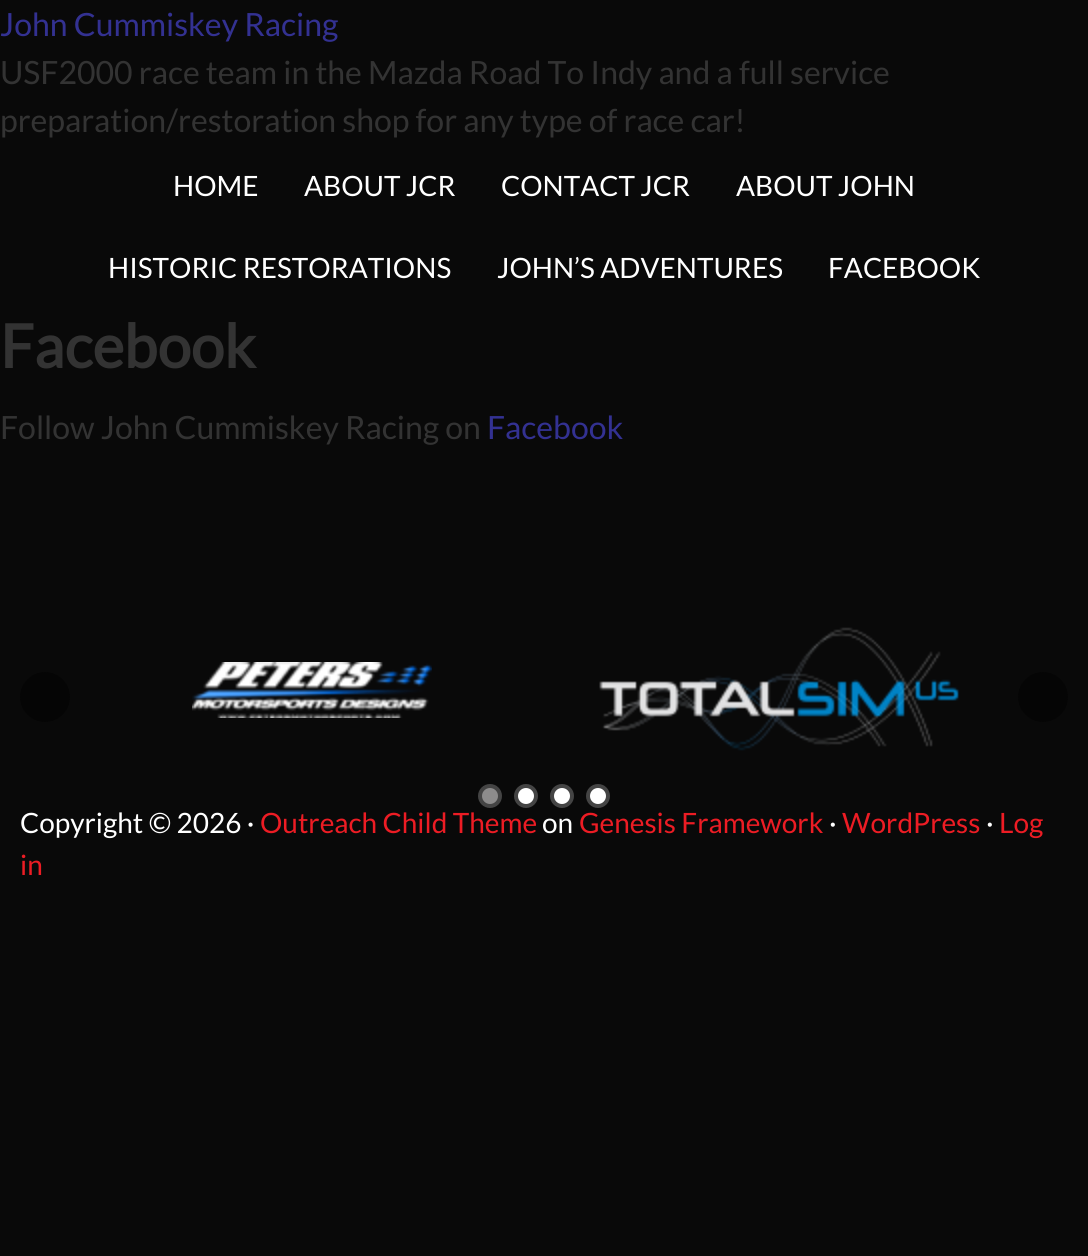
#include <cairo/cairo.h>
#include <math.h>
#include <stddef.h>

static cairo_t *cr;

static void use_color(int r, int g, int b) {
  cairo_set_source_rgb(cr, r / 255.0, g / 255.0, b / 255.0);
}

static void text(double x, double y, const char *s, const char *family, double size, int italic, int bold, int r, int g, int b) {
  cairo_select_font_face(cr, family, italic ? CAIRO_FONT_SLANT_ITALIC : CAIRO_FONT_SLANT_NORMAL,
    bold ? CAIRO_FONT_WEIGHT_BOLD : CAIRO_FONT_WEIGHT_NORMAL);
  cairo_set_font_size(cr, size);
  use_color(r, g, b);
  cairo_move_to(cr, x, y);
  cairo_show_text(cr, s);
}

static void picture(const char *path, double x, double y, double w, double h) {
  cairo_surface_t *image = cairo_image_surface_create_from_png(path);
  cairo_save(cr);
  cairo_set_source_surface(cr, image, x, y);
  cairo_rectangle(cr, x, y, w, h);
  cairo_fill(cr);
  cairo_restore(cr);
  cairo_surface_destroy(image);
}

static void draw(void) {
  use_color(9, 9, 9);
  cairo_paint(cr);
  use_color(5, 5, 5);
  cairo_arc(cr, 45, 697, 25, 0, 2 * M_PI);
  cairo_fill(cr);
  picture("img_01.png", 192, 662, 240, 56);
  picture("img_02.png", 599, 627, 360, 124);
  cairo_arc(cr, 1043, 697, 25, 0, 2 * M_PI);
  cairo_fill(cr);
  use_color(141, 140, 140);
  cairo_arc(cr, 490, 796, 10, 0, 2 * M_PI);
  cairo_fill_preserve(cr);
  use_color(68, 68, 68);
  cairo_set_line_width(cr, 4);
  cairo_stroke(cr);
  use_color(255, 255, 255);
  cairo_arc(cr, 526, 796, 10, 0, 2 * M_PI);
  cairo_fill_preserve(cr);
  use_color(68, 68, 68);
  cairo_stroke(cr);
  use_color(255, 255, 255);
  cairo_arc(cr, 562, 796, 10, 0, 2 * M_PI);
  cairo_fill_preserve(cr);
  use_color(68, 68, 68);
  cairo_stroke(cr);
  use_color(255, 255, 255);
  cairo_arc(cr, 598, 796, 10, 0, 2 * M_PI);
  cairo_fill_preserve(cr);
  use_color(68, 68, 68);
  cairo_stroke(cr);
  text(0, 36, "John Cummiskey Racing", "Lato", 32, 0, 0, 51, 49, 146);
  text(0, 84, "USF2000 race team in the Mazda Road To Indy and a full service", "Lato", 32, 0, 0, 51, 51, 51);
  text(0, 132, "preparation/restoration shop for any type of race car!", "Lato", 32, 0, 0, 51, 51, 51);
  text(173, 196, "HOME", "Lato", 28, 0, 0, 255, 255, 255);
  text(304, 196, "ABOUT JCR", "Lato", 28, 0, 0, 255, 255, 255);
  text(501, 196, "CONTACT JCR", "Lato", 28, 0, 0, 255, 255, 255);
  text(736, 196, "ABOUT JOHN", "Lato", 28, 0, 0, 255, 255, 255);
  text(108, 278, "HISTORIC RESTORATIONS", "Lato", 28, 0, 0, 255, 255, 255);
  text(497, 278, "JOHN’S ADVENTURES", "Lato", 28, 0, 0, 255, 255, 255);
  text(828, 278, "FACEBOOK", "Lato", 28, 0, 0, 255, 255, 255);
  text(0, 368, "Facebook", "Lato", 60, 0, 1, 51, 51, 51);
  text(0, 439, "Follow John Cummiskey Racing on", "Lato", 32, 0, 0, 51, 51, 51);
  text(487, 439, "Facebook", "Lato", 32, 0, 0, 51, 49, 146);
  text(20, 833, "Copyright © 2026 ·", "Lato", 28, 0, 0, 255, 255, 255);
  text(260, 833, "Outreach Child Theme", "Lato", 28, 0, 0, 237, 28, 36);
  text(542, 833, "on", "Lato", 28, 0, 0, 255, 255, 255);
  text(579, 833, "Genesis Framework", "Lato", 28, 0, 0, 237, 28, 36);
  text(829, 833, "·", "Lato", 28, 0, 0, 255, 255, 255);
  text(842, 833, "WordPress", "Lato", 28, 0, 0, 237, 28, 36);
  text(986, 833, "·", "Lato", 28, 0, 0, 255, 255, 255);
  text(999, 833, "Log", "Lato", 28, 0, 0, 237, 28, 36);
  text(20, 875, "in", "Lato", 28, 0, 0, 237, 28, 36);
}

int main(void) {
  cairo_surface_t *surface = cairo_image_surface_create(CAIRO_FORMAT_RGB24, 1088, 1256);
  cr = cairo_create(surface);
  cairo_font_options_t *options = cairo_font_options_create();
  cairo_font_options_set_hint_metrics(options, CAIRO_HINT_METRICS_OFF);
  cairo_font_options_set_hint_style(options, CAIRO_HINT_STYLE_NONE);
  cairo_set_font_options(cr, options);
  cairo_set_miter_limit(cr, 4);
  draw();
  cairo_surface_write_to_png(surface, "out.png");
  cairo_font_options_destroy(options);
  cairo_destroy(cr);
  cairo_surface_destroy(surface);
  return 0;
}
